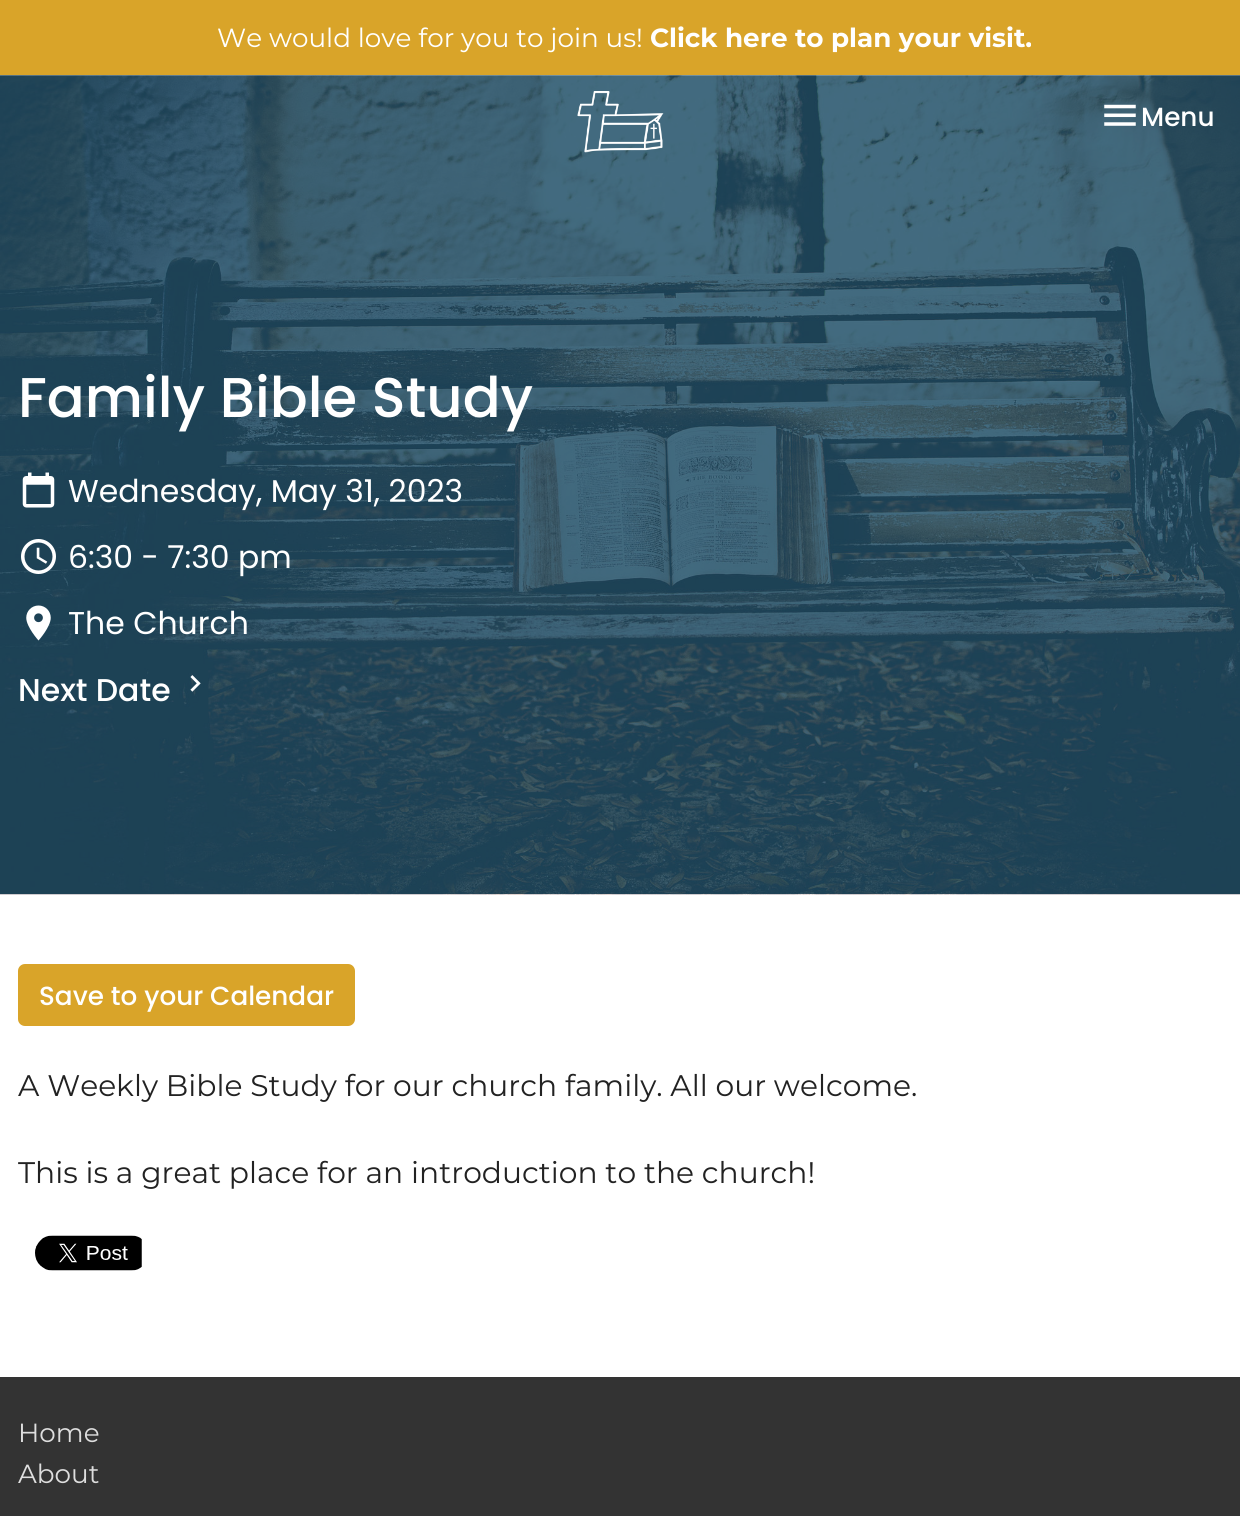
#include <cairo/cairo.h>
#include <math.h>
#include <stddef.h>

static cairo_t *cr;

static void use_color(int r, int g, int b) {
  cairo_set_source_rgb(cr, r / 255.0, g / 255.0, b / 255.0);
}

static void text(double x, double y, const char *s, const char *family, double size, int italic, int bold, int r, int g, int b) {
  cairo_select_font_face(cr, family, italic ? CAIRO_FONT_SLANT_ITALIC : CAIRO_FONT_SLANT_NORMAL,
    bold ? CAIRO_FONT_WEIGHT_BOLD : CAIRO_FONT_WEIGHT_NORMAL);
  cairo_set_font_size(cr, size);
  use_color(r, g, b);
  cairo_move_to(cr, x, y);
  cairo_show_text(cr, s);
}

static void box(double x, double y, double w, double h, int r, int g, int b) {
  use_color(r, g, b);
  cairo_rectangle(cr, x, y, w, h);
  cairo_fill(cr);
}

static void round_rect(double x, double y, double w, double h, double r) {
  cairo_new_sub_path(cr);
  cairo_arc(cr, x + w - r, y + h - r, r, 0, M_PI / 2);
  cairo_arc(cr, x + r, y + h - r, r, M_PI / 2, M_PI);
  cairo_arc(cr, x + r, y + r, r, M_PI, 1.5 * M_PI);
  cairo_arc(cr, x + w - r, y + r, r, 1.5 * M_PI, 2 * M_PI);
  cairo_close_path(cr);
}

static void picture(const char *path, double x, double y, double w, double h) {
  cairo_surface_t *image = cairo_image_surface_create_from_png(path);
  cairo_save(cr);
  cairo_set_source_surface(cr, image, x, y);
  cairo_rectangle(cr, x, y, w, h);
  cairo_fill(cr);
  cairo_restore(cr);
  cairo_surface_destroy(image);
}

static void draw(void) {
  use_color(255, 255, 255);
  cairo_paint(cr);
  box(0, 0, 1240, 75, 217, 164, 41);
  picture("img_03.png", 0, 75, 1240, 820);
  picture("img_01.png", 577, 91, 87, 62);
  picture("img_02.png", 1104, 104, 32, 22);
  picture("img_04.png", 22, 472, 33, 36);
  picture("img_05.png", 21, 539, 35, 35);
  picture("img_06.png", 26, 605, 25, 36);
  picture("img_07.png", 190, 675, 11, 17);
  round_rect(18, 964, 337, 62, 7);
  cairo_fill(cr);
  picture("img_08.png", 35, 1235, 107, 36);
  box(0, 1377, 1240, 139, 51, 51, 51);
  text(217, 47, "We would love for you to join us!", "Montserrat", 26.25, 0, 0, 255, 255, 255);
  text(650, 47, "Click here to plan your visit.", "Montserrat", 26.25, 0, 1, 255, 255, 255);
  text(1141, 126, "Menu", "Poppins Medium", 26.25, 0, 0, 255, 255, 255);
  text(18, 417, "Family Bible Study", "Poppins Medium", 56, 0, 0, 255, 255, 255);
  text(68, 502, "Wednesday, May 31, 2023", "Poppins", 31.5, 0, 0, 255, 255, 255);
  text(68, 568, "6:30 - 7:30 pm", "Poppins", 31.5, 0, 0, 255, 255, 255);
  text(68, 634, "The Church", "Poppins", 31.5, 0, 0, 255, 255, 255);
  text(18, 701, "Next Date", "Poppins Medium", 31.5, 0, 0, 255, 255, 255);
  text(39, 1005, "Save to your Calendar", "Poppins Medium", 26.25, 0, 0, 255, 255, 255);
  text(18, 1096, "A Weekly Bible Study for our church family. All our welcome.", "Montserrat", 29.75, 0, 0, 34, 34, 34);
  text(18, 1183, "This is a great place for an introduction to the church!", "Montserrat", 29.75, 0, 0, 34, 34, 34);
  text(18, 1442, "Home", "Montserrat", 26.25, 0, 0, 222, 222, 222);
  text(18, 1483, "About", "Montserrat", 26.25, 0, 0, 222, 222, 222);
}

int main(void) {
  cairo_surface_t *surface = cairo_image_surface_create(CAIRO_FORMAT_RGB24, 1240, 1516);
  cr = cairo_create(surface);
  cairo_font_options_t *options = cairo_font_options_create();
  cairo_font_options_set_hint_metrics(options, CAIRO_HINT_METRICS_OFF);
  cairo_font_options_set_hint_style(options, CAIRO_HINT_STYLE_NONE);
  cairo_set_font_options(cr, options);
  cairo_set_miter_limit(cr, 4);
  draw();
  cairo_surface_write_to_png(surface, "out.png");
  cairo_font_options_destroy(options);
  cairo_destroy(cr);
  cairo_surface_destroy(surface);
  return 0;
}
